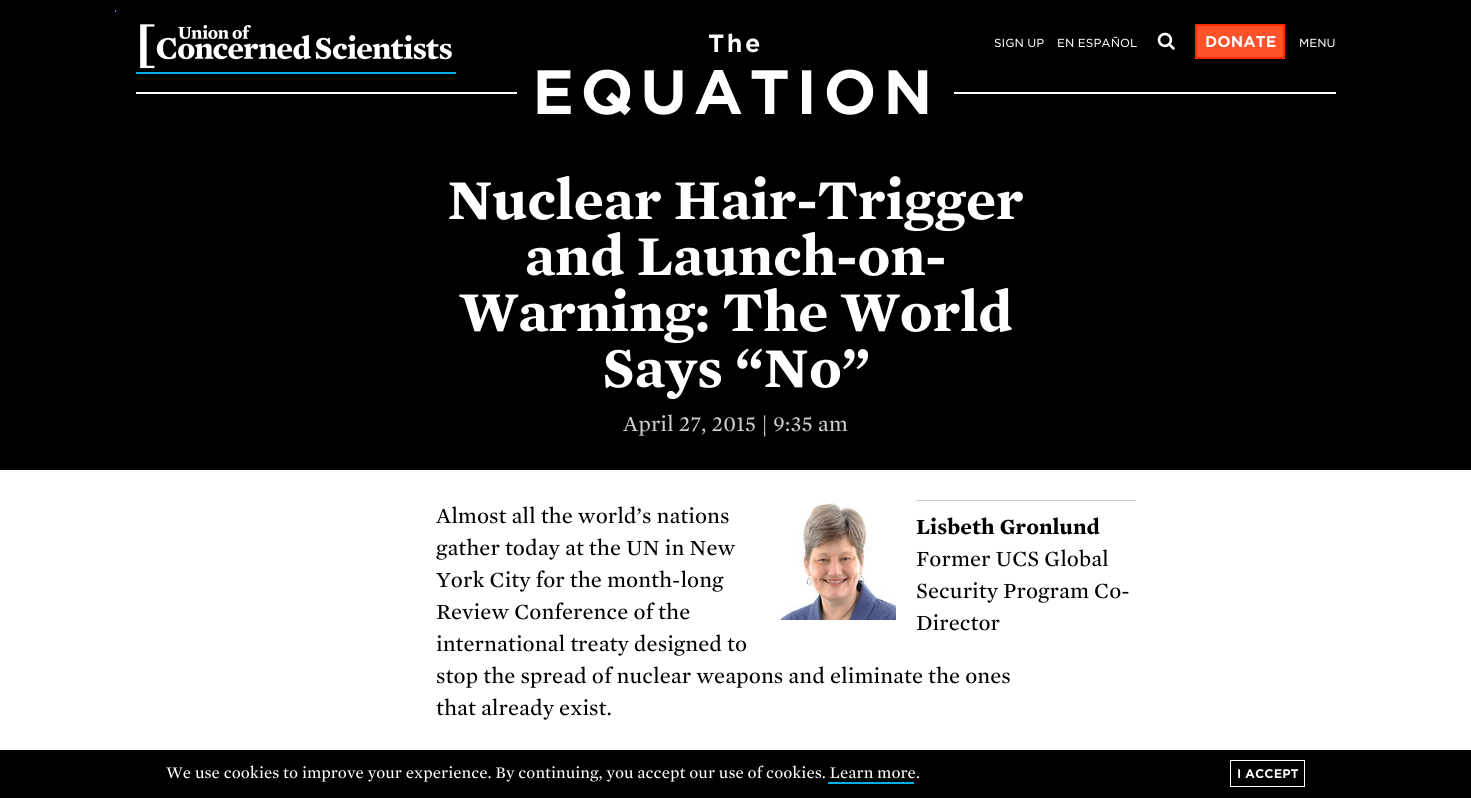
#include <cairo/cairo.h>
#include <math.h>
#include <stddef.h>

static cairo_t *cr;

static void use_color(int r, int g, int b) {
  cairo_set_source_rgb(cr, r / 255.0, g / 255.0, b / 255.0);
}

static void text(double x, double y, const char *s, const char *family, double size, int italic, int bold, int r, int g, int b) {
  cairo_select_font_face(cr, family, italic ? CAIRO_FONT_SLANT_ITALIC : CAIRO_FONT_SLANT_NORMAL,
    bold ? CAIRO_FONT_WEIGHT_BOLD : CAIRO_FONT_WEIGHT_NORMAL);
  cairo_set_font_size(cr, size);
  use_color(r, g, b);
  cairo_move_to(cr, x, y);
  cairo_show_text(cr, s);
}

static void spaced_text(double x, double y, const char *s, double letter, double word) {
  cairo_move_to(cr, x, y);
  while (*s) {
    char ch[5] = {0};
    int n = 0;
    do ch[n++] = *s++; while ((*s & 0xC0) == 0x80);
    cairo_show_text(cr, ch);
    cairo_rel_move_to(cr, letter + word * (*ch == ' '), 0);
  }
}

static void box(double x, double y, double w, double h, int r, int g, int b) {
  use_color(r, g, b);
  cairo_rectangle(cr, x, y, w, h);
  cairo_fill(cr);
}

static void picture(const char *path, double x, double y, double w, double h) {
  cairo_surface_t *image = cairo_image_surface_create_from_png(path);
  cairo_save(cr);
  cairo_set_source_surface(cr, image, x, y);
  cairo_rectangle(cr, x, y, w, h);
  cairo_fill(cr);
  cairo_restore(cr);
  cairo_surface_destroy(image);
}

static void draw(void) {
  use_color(255, 255, 255);
  cairo_paint(cr);
  box(0, 0, 1471, 470, 0, 0, 0);
  box(115, 10, 1, 2, 0, 174, 235);
  box(136, 72, 320, 2, 0, 174, 235);
  picture("img_01.png", 140, 24, 312, 45);
  box(136, 92, 1200, 2, 255, 255, 255);
  box(517, 92, 437, 2, 0, 0, 0);
  picture("img_02.png", 1157, 32, 18, 18);
  use_color(255, 82, 43);
  cairo_rectangle(cr, 1196, 25, 88, 33);
  cairo_fill_preserve(cr);
  use_color(247, 45, 0);
  cairo_stroke(cr);
  picture("img_03.png", 776, 500, 120, 120);
  box(916, 500, 220, 1, 204, 204, 204);
  box(0, 750, 1471, 48, 0, 0, 0);
  box(828, 782, 86, 2, 0, 174, 235);
  cairo_rectangle(cr, 1230.5, 760.5, 74, 26);
  use_color(255, 255, 255);
  cairo_set_line_width(cr, 1);
  cairo_stroke(cr);
  cairo_select_font_face(cr, "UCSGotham", CAIRO_FONT_SLANT_NORMAL, CAIRO_FONT_WEIGHT_BOLD);
  cairo_set_font_size(cr, 24);
  spaced_text(708, 52, "The", 2.5, 0);
  cairo_set_font_size(cr, 60);
  spaced_text(532, 114, "EQUATION", 6, 0);
  text(994, 47, "SIGN UP", "UCSGotham", 11.25, 0, 0, 255, 255, 255);
  text(1057, 47, "EN ESPAÑOL", "UCSGotham", 11.25, 0, 0, 255, 255, 255);
  text(1205, 47, "DONATE", "UCSGotham", 15, 0, 1, 255, 255, 255);
  text(1299, 47, "MENU", "UCSGotham", 11.25, 0, 0, 255, 255, 255);
  cairo_select_font_face(cr, "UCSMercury", CAIRO_FONT_SLANT_NORMAL, CAIRO_FONT_WEIGHT_BOLD);
  cairo_set_font_size(cr, 52);
  spaced_text(447, 219, "Nuclear Hair-Trigger", -0.25, 0);
  spaced_text(525, 275, "and Launch-on-", -0.25, 0);
  spaced_text(459, 331, "Warning: The World", -0.25, 0);
  spaced_text(602, 387, "Says “No”", -0.25, 0);
  text(623, 431, "April 27, 2015 | 9:35 am", "UCSMercury", 20, 0, 0, 204, 204, 204);
  text(436, 523, "Almost all the world’s nations", "UCSMercury", 20, 0, 0, 0, 0, 0);
  text(436, 555, "gather today at the UN in New", "UCSMercury", 20, 0, 0, 0, 0, 0);
  text(436, 587, "York City for the month-long", "UCSMercury", 20, 0, 0, 0, 0, 0);
  text(436, 619, "Review Conference of the", "UCSMercury", 20, 0, 0, 0, 0, 0);
  text(436, 651, "international treaty designed to", "UCSMercury", 20, 0, 0, 0, 0, 0);
  text(436, 683, "stop the spread of nuclear weapons and eliminate the ones", "UCSMercury", 20, 0, 0, 0, 0, 0);
  text(436, 715, "that already exist.", "UCSMercury", 20, 0, 0, 0, 0, 0);
  text(916, 534, "Lisbeth Gronlund", "UCSMercury", 20, 0, 1, 0, 0, 0);
  text(916, 566, "Former UCS Global", "UCSMercury", 20, 0, 0, 0, 0, 0);
  text(916, 598, "Security Program Co-", "UCSMercury", 20, 0, 0, 0, 0, 0);
  text(916, 630, "Director", "UCSMercury", 20, 0, 0, 0, 0, 0);
  text(166, 778, "We use cookies to improve your experience. By continuing, you accept our use of cookies. Learn more.", "UCSMercury", 15, 0, 0, 255, 255, 255);
  text(1237, 778, "I ACCEPT", "UCSGotham", 12, 0, 1, 255, 255, 255);
}

int main(void) {
  cairo_surface_t *surface = cairo_image_surface_create(CAIRO_FORMAT_RGB24, 1471, 798);
  cr = cairo_create(surface);
  cairo_font_options_t *options = cairo_font_options_create();
  cairo_font_options_set_hint_metrics(options, CAIRO_HINT_METRICS_OFF);
  cairo_font_options_set_hint_style(options, CAIRO_HINT_STYLE_NONE);
  cairo_set_font_options(cr, options);
  cairo_set_miter_limit(cr, 4);
  draw();
  cairo_surface_write_to_png(surface, "out.png");
  cairo_font_options_destroy(options);
  cairo_destroy(cr);
  cairo_surface_destroy(surface);
  return 0;
}
